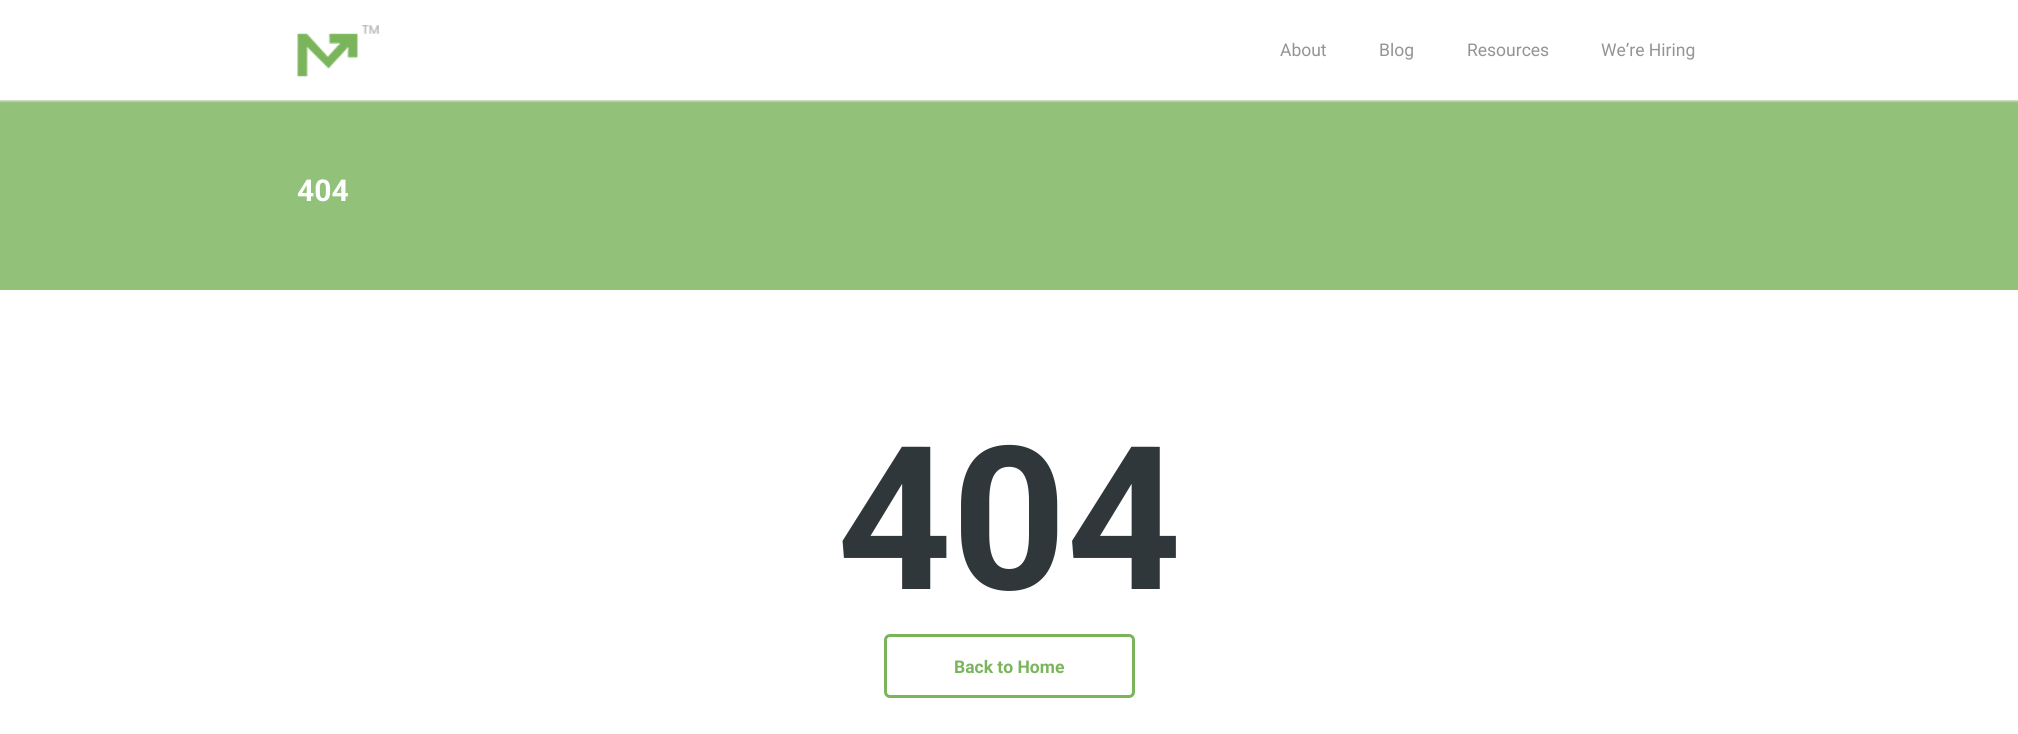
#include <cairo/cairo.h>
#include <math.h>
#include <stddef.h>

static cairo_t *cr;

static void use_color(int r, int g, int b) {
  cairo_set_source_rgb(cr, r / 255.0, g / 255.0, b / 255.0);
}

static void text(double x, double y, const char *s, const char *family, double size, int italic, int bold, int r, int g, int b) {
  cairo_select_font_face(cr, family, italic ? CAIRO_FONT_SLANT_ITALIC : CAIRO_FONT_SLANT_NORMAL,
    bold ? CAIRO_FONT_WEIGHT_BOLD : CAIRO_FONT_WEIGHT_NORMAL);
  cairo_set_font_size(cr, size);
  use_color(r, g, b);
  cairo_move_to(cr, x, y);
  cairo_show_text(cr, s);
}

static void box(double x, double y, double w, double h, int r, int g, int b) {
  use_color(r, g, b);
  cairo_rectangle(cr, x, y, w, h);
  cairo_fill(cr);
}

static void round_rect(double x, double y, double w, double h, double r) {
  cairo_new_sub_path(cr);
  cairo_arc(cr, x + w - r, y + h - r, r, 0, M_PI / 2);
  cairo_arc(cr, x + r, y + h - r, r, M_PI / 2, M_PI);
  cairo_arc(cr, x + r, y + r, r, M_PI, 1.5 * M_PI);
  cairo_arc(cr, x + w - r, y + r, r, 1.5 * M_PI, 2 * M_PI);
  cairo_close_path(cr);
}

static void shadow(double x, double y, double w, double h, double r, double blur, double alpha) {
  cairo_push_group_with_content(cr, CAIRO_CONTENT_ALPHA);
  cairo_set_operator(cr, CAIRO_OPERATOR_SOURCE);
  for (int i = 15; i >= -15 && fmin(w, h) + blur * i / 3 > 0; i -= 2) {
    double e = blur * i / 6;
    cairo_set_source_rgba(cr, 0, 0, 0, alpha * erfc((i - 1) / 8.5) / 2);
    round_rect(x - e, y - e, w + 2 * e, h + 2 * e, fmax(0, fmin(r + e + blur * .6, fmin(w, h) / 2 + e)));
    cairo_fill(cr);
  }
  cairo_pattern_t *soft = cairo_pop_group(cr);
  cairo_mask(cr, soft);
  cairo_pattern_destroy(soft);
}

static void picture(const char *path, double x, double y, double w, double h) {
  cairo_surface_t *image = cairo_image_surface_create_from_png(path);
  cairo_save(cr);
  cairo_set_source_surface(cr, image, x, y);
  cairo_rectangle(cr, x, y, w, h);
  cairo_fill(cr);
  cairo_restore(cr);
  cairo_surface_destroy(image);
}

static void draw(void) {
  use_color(255, 255, 255);
  cairo_paint(cr);
  box(0, 100, 2018, 190, 146, 194, 122);
  cairo_save(cr);
  cairo_rectangle(cr, 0, 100, 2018, 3);
  cairo_clip(cr);
  use_color(234, 234, 234);
  shadow(0, 1, 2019, 100, 0, 1, 1);
  cairo_restore(cr);
  picture("img_01.png", 297, 25, 82, 52);
  round_rect(885.5, 635.5, 248, 61, 4.5);
  use_color(122, 181, 92);
  cairo_set_line_width(cr, 3);
  cairo_stroke(cr);
  text(1280, 56, "About", "Roboto", 17.5, 0, 0, 148, 148, 148);
  text(1379, 56, "Blog", "Roboto", 17.5, 0, 0, 148, 148, 148);
  text(1467, 56, "Resources", "Roboto", 17.5, 0, 0, 148, 148, 148);
  text(1601, 56, "We’re Hiring", "Roboto", 17.5, 0, 0, 148, 148, 148);
  text(297, 201, "404", "Roboto", 30, 0, 1, 255, 255, 255);
  text(837, 589, "404", "Roboto", 200, 0, 1, 48, 55, 59);
  text(954, 673, "Back to Home", "Roboto", 17.5, 0, 1, 122, 181, 92);
}

int main(void) {
  cairo_surface_t *surface = cairo_image_surface_create(CAIRO_FORMAT_RGB24, 2018, 734);
  cr = cairo_create(surface);
  cairo_font_options_t *options = cairo_font_options_create();
  cairo_font_options_set_hint_metrics(options, CAIRO_HINT_METRICS_OFF);
  cairo_font_options_set_hint_style(options, CAIRO_HINT_STYLE_NONE);
  cairo_set_font_options(cr, options);
  cairo_set_miter_limit(cr, 4);
  draw();
  cairo_surface_write_to_png(surface, "out.png");
  cairo_font_options_destroy(options);
  cairo_destroy(cr);
  cairo_surface_destroy(surface);
  return 0;
}
